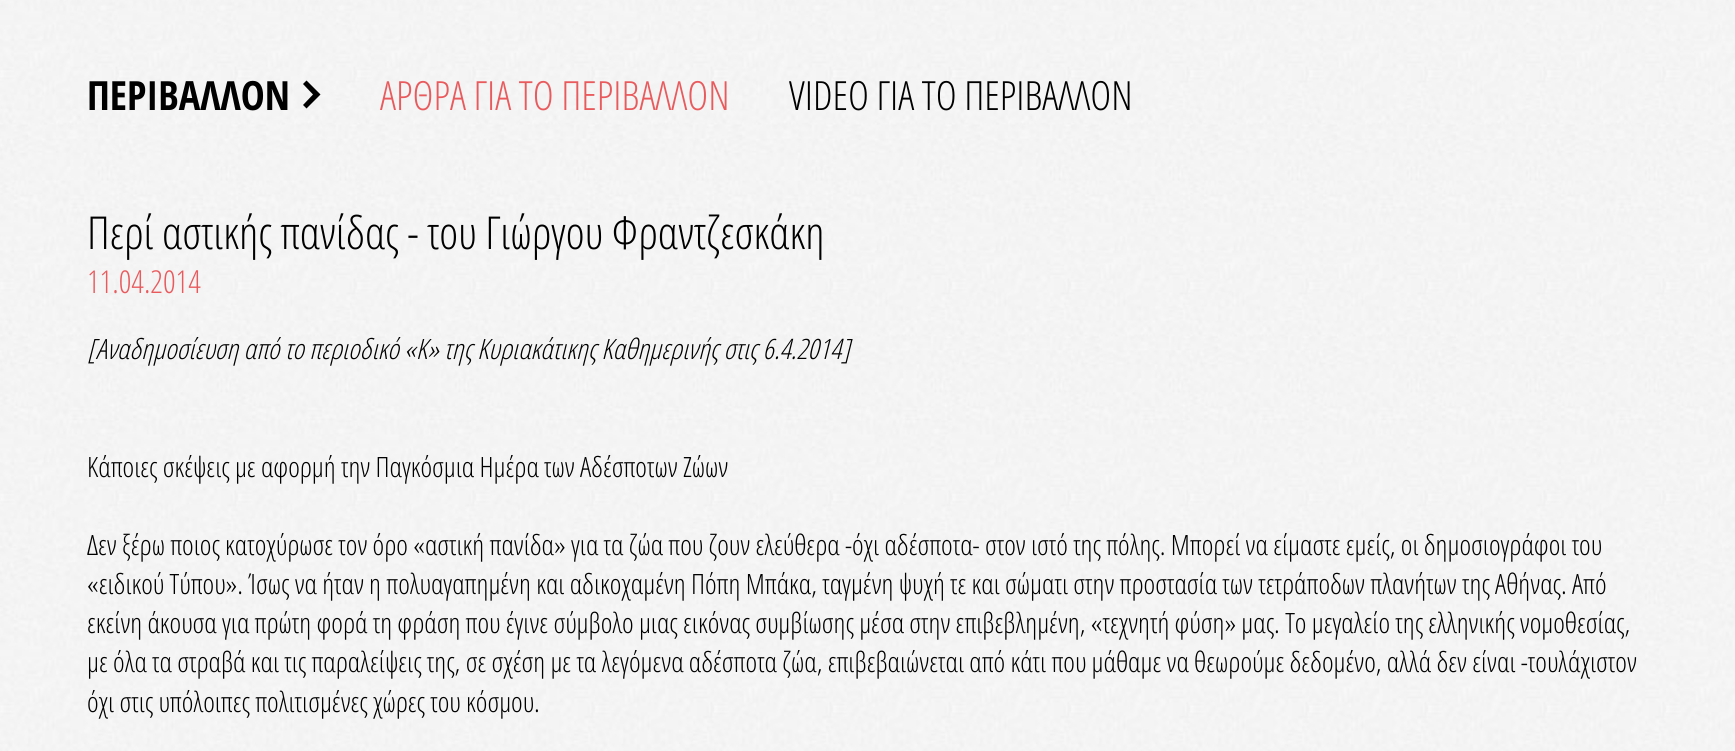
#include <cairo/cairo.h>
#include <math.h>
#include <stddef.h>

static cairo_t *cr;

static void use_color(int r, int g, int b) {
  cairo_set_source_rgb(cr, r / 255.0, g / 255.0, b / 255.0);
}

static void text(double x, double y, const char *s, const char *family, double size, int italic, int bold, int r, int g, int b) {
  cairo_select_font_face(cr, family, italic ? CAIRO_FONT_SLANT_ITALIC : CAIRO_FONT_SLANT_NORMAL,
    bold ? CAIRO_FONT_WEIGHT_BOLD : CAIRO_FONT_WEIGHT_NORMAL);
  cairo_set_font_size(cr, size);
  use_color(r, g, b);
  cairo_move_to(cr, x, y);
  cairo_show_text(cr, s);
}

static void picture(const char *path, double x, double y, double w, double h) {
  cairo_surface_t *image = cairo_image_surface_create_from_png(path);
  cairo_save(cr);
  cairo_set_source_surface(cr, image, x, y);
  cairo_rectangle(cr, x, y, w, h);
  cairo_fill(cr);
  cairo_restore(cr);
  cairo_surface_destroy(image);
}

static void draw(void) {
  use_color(255, 255, 255);
  cairo_paint(cr);
  picture("img_01.png", 0, 0, 1735, 751);
  use_color(0, 0, 0);
  cairo_new_path(cr);
  cairo_move_to(cr, 303, 84);
  cairo_line_to(cr, 306.5, 80.5);
  cairo_line_to(cr, 320.5, 94.5);
  cairo_line_to(cr, 306.5, 108.5);
  cairo_line_to(cr, 303, 105);
  cairo_line_to(cr, 313, 94.5);
  cairo_close_path(cr);
  cairo_fill(cr);
  text(87, 110, "ΠΕΡΙΒΑΛΛΟΝ", "Open Sans Condensed", 40.25, 0, 1, 0, 0, 0);
  text(380, 110, "ΑΡΘΡΑ ΓΙΑ ΤΟ ΠΕΡΙΒΑΛΛΟΝ", "Open Sans Condensed Light", 40.25, 0, 0, 233, 90, 93);
  text(789, 110, "VIDEO ΓΙΑ ΤΟ ΠΕΡΙΒΑΛΛΟN", "Open Sans Condensed Light", 40.25, 0, 0, 0, 0, 0);
  text(87, 249, "Περί αστικής πανίδας - του Γιώργου Φραντζεσκάκη", "Open Sans Condensed Light", 45.4, 0, 0, 0, 0, 0);
  text(87, 293, "11.04.2014", "Open Sans Condensed Light", 31.5, 0, 0, 233, 90, 93);
  text(87, 359, "[Αναδημοσίευση από το περιοδικό «Κ» της Κυριακάτικης Καθημερινής στις 6.4.2014]", "Open Sans Condensed Light", 28, 1, 0, 0, 0, 0);
  text(87, 477, "Κάποιες σκέψεις με αφορμή την Παγκόσμια Ημέρα των Αδέσποτων Ζώων", "Open Sans Condensed Light", 28, 0, 0, 0, 0, 0);
  text(87, 555, "Δεν ξέρω ποιος κατοχύρωσε τον όρο «αστική πανίδα» για τα ζώα που ζουν ελεύθερα -όχι αδέσποτα- στον ιστό της πόλης. Μπορεί να είμαστε εμείς, οι δημοσιογράφοι του", "Open Sans Condensed Light", 28, 0, 0, 0, 0, 0);
  text(87, 594, "«ειδικού Τύπου». Ίσως να ήταν η πολυαγαπημένη και αδικοχαμένη Πόπη Μπάκα, ταγμένη ψυχή τε και σώματι στην προστασία των τετράποδων πλανήτων της Αθήνας. Από", "Open Sans Condensed Light", 28, 0, 0, 0, 0, 0);
  text(87, 633, "εκείνη άκουσα για πρώτη φορά τη φράση που έγινε σύμβολο μιας εικόνας συμβίωσης μέσα στην επιβεβλημένη, «τεχνητή φύση» μας. Το μεγαλείο της ελληνικής νομοθεσίας,", "Open Sans Condensed Light", 28, 0, 0, 0, 0, 0);
  text(87, 672, "με όλα τα στραβά και τις παραλείψεις της, σε σχέση με τα λεγόμενα αδέσποτα ζώα, επιβεβαιώνεται από κάτι που μάθαμε να θεωρούμε δεδομένο, αλλά δεν είναι -τουλάχιστον", "Open Sans Condensed Light", 28, 0, 0, 0, 0, 0);
  text(87, 712, "όχι στις υπόλοιπες πολιτισμένες χώρες του κόσμου.", "Open Sans Condensed Light", 28, 0, 0, 0, 0, 0);
}

int main(void) {
  cairo_surface_t *surface = cairo_image_surface_create(CAIRO_FORMAT_RGB24, 1735, 751);
  cr = cairo_create(surface);
  cairo_font_options_t *options = cairo_font_options_create();
  cairo_font_options_set_hint_metrics(options, CAIRO_HINT_METRICS_OFF);
  cairo_font_options_set_hint_style(options, CAIRO_HINT_STYLE_NONE);
  cairo_set_font_options(cr, options);
  cairo_set_miter_limit(cr, 4);
  draw();
  cairo_surface_write_to_png(surface, "out.png");
  cairo_font_options_destroy(options);
  cairo_destroy(cr);
  cairo_surface_destroy(surface);
  return 0;
}
